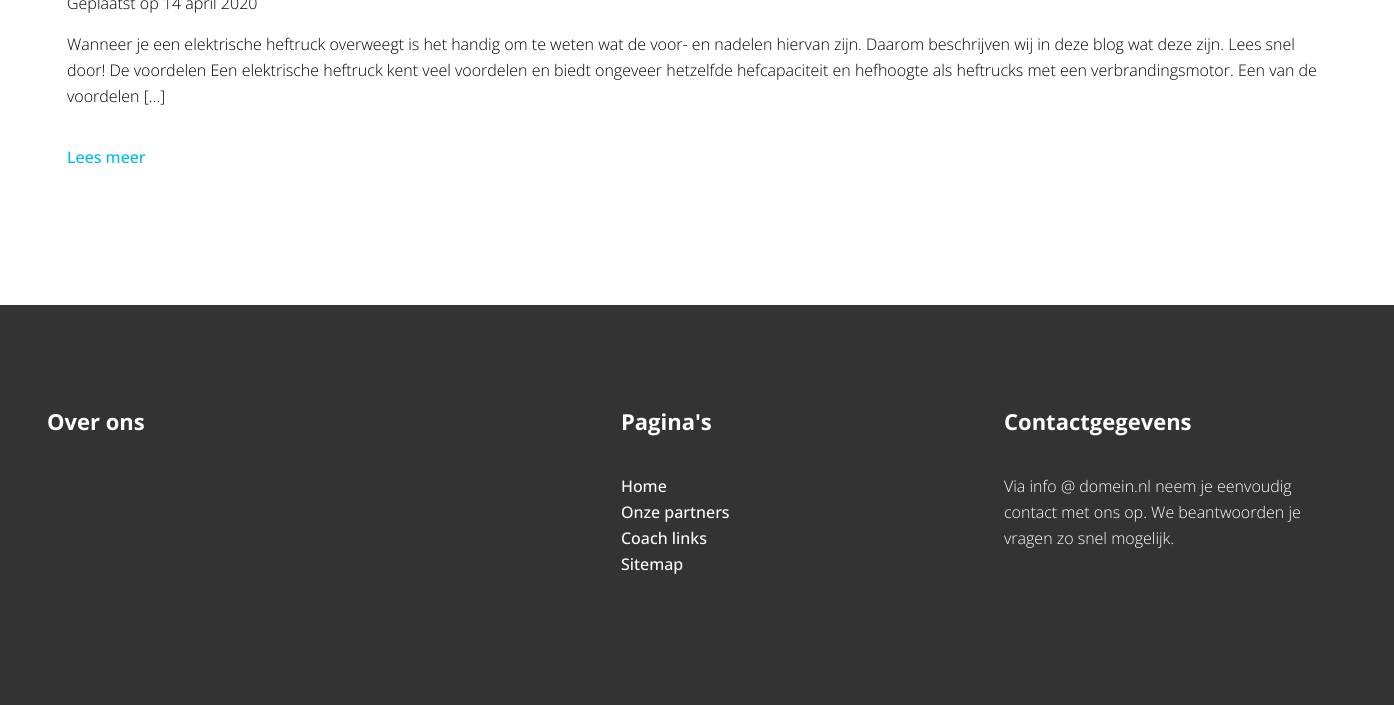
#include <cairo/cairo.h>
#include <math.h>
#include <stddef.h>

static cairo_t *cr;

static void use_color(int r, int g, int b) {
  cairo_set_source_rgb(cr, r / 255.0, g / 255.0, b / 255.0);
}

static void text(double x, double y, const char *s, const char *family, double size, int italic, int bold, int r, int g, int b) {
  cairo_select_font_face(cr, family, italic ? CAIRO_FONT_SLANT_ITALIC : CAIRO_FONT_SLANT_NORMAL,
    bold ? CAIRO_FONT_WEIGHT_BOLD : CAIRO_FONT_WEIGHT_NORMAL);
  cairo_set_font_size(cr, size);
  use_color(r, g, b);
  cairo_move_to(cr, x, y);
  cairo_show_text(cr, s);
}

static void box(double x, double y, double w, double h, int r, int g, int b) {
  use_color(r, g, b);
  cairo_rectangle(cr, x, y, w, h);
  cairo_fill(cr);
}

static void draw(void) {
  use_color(255, 255, 255);
  cairo_paint(cr);
  box(0, 305, 1394, 400, 51, 51, 51);
  text(67, 9, "Geplaatst op 14 april 2020", "Open Sans Light", 16, 0, 0, 0, 0, 0);
  text(67, 50, "Wanneer je een elektrische heftruck overweegt is het handig om te weten wat de voor- en nadelen hiervan zijn. Daarom beschrijven wij in deze blog wat deze zijn. Lees snel", "Open Sans Light", 16, 0, 0, 0, 0, 0);
  text(67, 76, "door! De voordelen Een elektrische heftruck kent veel voordelen en biedt ongeveer hetzelfde hefcapaciteit en hefhoogte als heftrucks met een verbrandingsmotor. Een van de", "Open Sans Light", 16, 0, 0, 0, 0, 0);
  text(67, 102, "voordelen […]", "Open Sans Light", 16, 0, 0, 0, 0, 0);
  text(67, 163, "Lees meer", "Open Sans Medium", 16, 0, 0, 0, 184, 241);
  text(47, 430, "Over ons", "Open Sans", 22, 0, 1, 255, 255, 255);
  text(621, 430, "Pagina's", "Open Sans", 22, 0, 1, 255, 255, 255);
  text(621, 492, "Home", "Open Sans Medium", 16, 0, 0, 255, 255, 255);
  text(621, 518, "Onze partners", "Open Sans Medium", 16, 0, 0, 255, 255, 255);
  text(621, 544, "Coach links", "Open Sans Medium", 16, 0, 0, 255, 255, 255);
  text(621, 570, "Sitemap", "Open Sans Medium", 16, 0, 0, 255, 255, 255);
  text(1004, 430, "Contactgegevens", "Open Sans", 22, 0, 1, 255, 255, 255);
  text(1004, 492, "Via info @ domein.nl neem je eenvoudig", "Open Sans Light", 16, 0, 0, 255, 255, 255);
  text(1004, 518, "contact met ons op. We beantwoorden je", "Open Sans Light", 16, 0, 0, 255, 255, 255);
  text(1004, 544, "vragen zo snel mogelijk.", "Open Sans Light", 16, 0, 0, 255, 255, 255);
}

int main(void) {
  cairo_surface_t *surface = cairo_image_surface_create(CAIRO_FORMAT_RGB24, 1394, 705);
  cr = cairo_create(surface);
  cairo_font_options_t *options = cairo_font_options_create();
  cairo_font_options_set_hint_metrics(options, CAIRO_HINT_METRICS_OFF);
  cairo_font_options_set_hint_style(options, CAIRO_HINT_STYLE_NONE);
  cairo_set_font_options(cr, options);
  cairo_set_miter_limit(cr, 4);
  draw();
  cairo_surface_write_to_png(surface, "out.png");
  cairo_font_options_destroy(options);
  cairo_destroy(cr);
  cairo_surface_destroy(surface);
  return 0;
}
